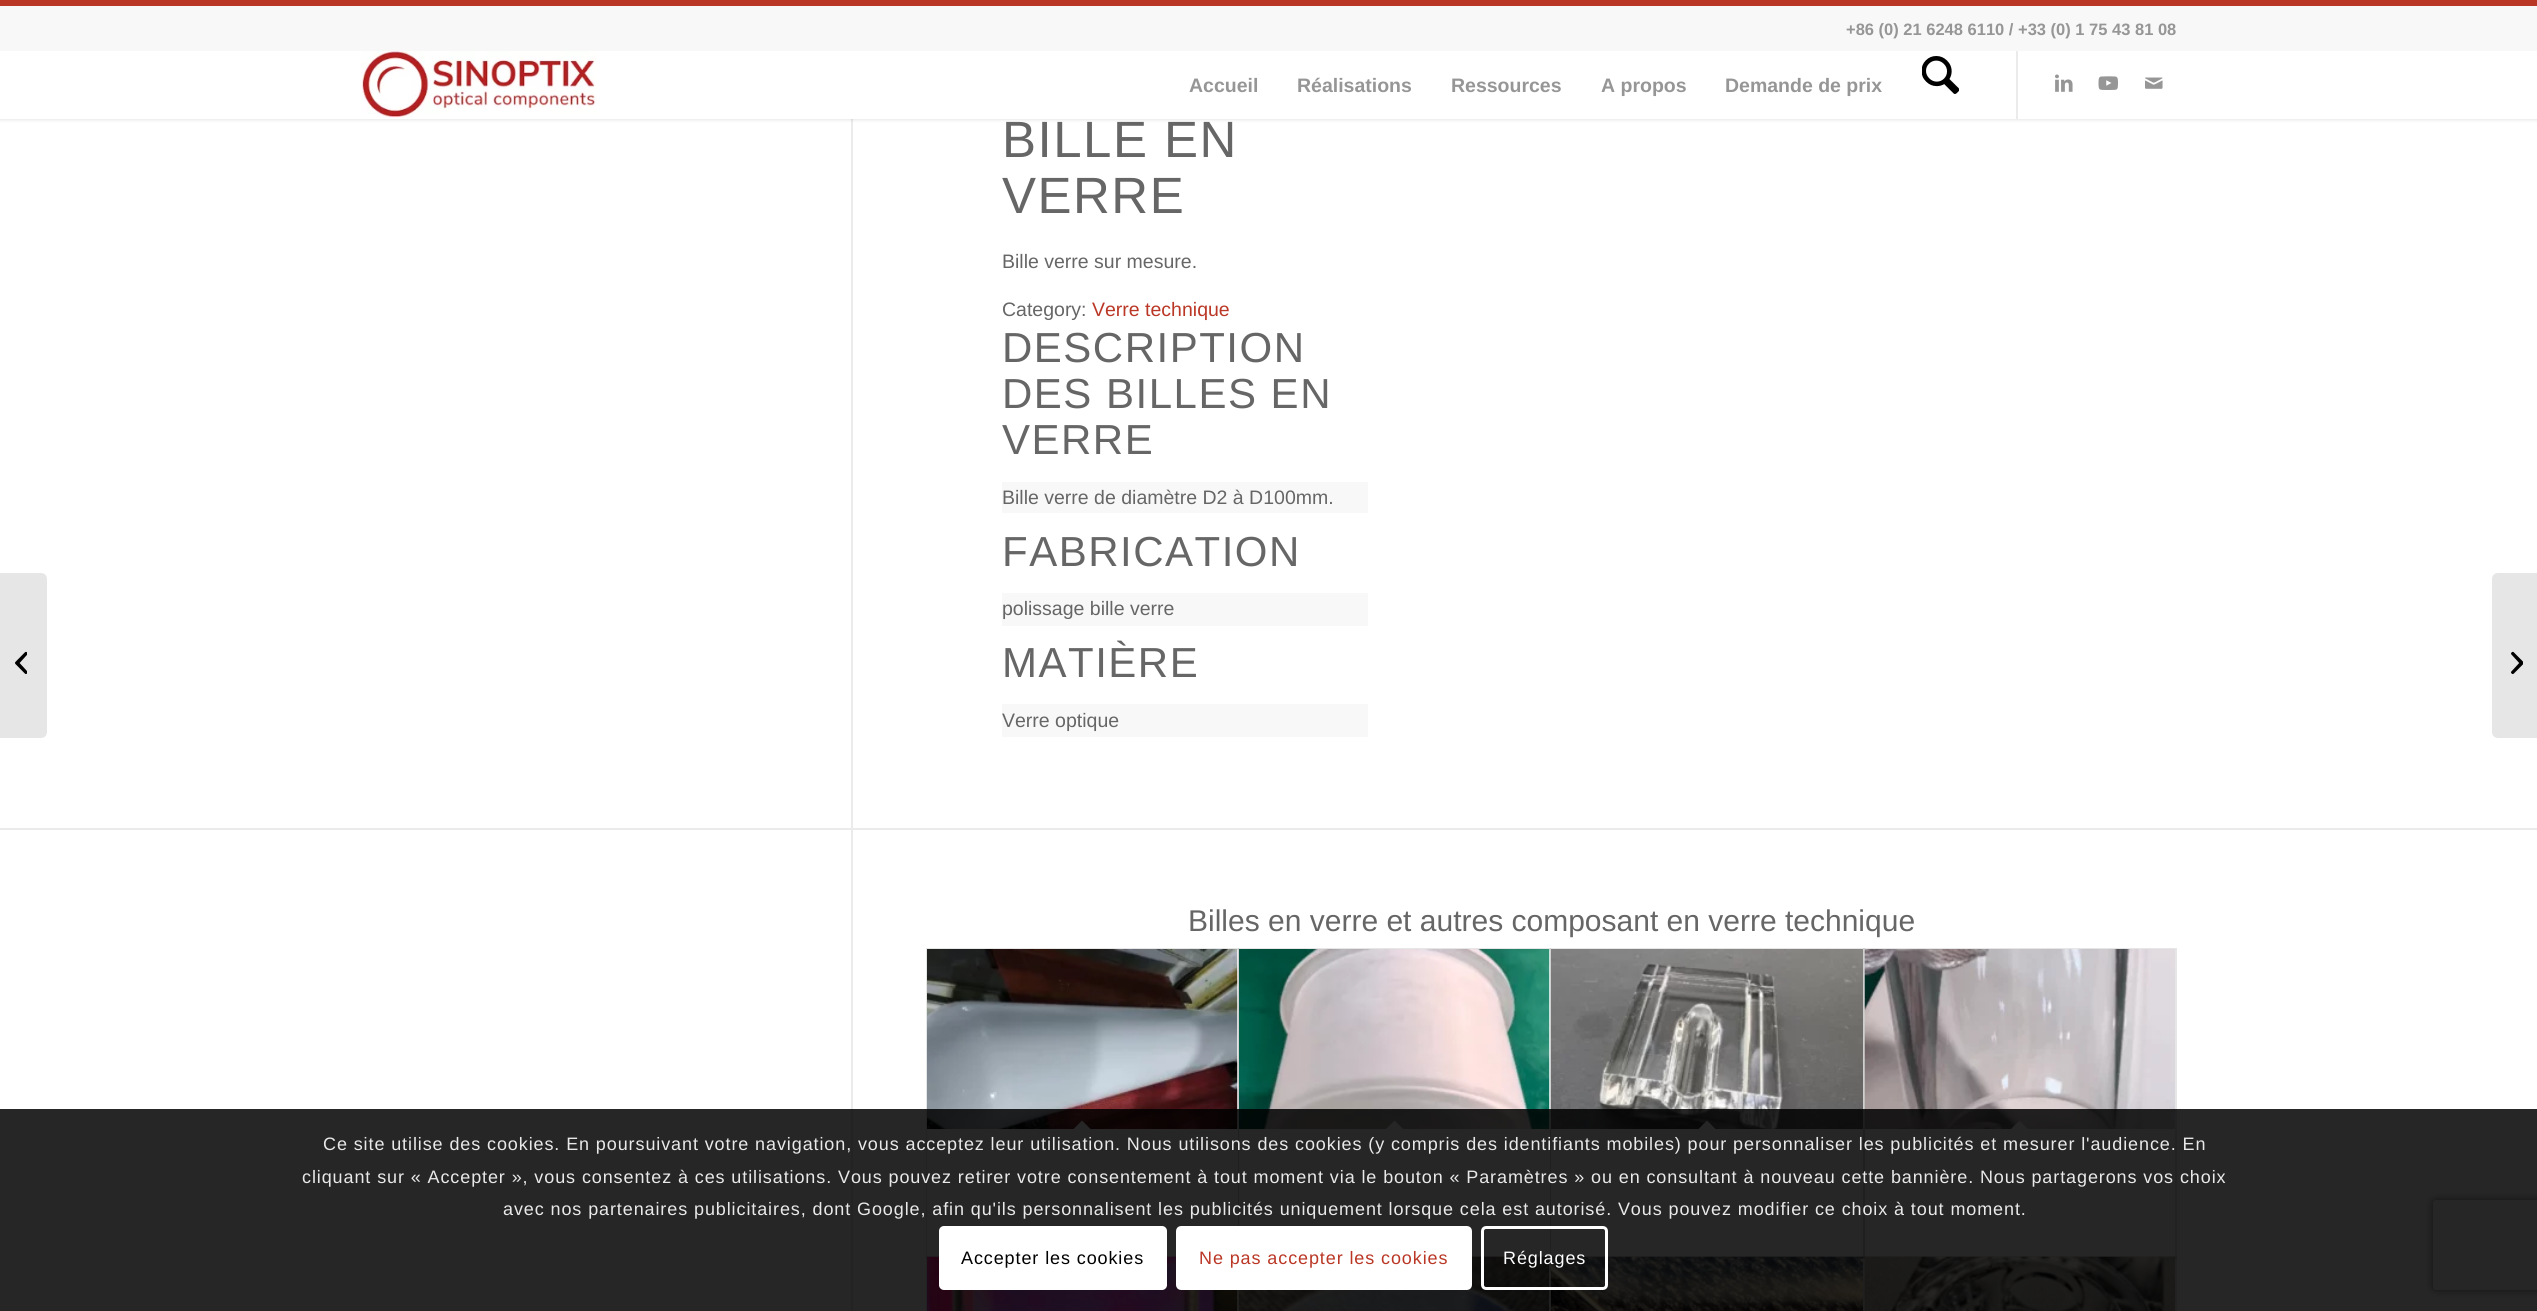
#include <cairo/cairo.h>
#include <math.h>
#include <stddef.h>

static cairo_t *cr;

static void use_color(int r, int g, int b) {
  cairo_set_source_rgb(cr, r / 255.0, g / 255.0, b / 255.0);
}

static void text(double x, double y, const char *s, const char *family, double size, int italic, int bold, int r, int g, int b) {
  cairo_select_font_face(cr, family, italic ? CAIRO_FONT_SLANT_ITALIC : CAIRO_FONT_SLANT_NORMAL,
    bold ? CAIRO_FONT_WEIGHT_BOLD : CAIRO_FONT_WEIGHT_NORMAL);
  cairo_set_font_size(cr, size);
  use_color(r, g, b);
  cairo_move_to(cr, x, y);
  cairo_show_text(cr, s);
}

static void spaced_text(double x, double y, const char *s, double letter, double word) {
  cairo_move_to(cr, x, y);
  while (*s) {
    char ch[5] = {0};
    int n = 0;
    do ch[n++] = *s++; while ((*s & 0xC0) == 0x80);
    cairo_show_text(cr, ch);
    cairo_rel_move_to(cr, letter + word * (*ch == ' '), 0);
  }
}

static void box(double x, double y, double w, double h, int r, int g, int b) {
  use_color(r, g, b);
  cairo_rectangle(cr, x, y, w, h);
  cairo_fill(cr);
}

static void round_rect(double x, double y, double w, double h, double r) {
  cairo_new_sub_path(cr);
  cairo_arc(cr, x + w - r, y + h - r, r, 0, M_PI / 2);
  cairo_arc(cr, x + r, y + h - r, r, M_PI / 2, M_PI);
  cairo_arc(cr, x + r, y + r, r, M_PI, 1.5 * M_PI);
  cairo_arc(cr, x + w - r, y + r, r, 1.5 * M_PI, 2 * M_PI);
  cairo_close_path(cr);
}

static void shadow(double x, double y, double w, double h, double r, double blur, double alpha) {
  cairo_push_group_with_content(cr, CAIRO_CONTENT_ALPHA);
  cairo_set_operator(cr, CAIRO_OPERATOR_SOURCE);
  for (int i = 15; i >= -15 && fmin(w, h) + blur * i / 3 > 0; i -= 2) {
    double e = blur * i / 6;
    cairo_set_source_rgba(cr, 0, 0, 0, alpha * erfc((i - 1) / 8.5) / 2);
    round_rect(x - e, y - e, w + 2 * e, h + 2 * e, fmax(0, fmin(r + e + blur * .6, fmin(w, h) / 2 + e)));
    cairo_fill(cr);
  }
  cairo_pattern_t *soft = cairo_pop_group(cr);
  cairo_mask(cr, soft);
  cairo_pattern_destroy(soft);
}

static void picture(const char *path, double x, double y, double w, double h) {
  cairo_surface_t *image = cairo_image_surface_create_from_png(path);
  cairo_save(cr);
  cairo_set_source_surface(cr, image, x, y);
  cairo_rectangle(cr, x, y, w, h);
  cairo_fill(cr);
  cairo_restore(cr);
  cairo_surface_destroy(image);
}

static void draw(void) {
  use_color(255, 255, 255);
  cairo_paint(cr);
  box(851, 119, 2, 709, 235, 235, 235);
  use_color(0, 0, 0);
  shadow(-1, -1, 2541, 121, 0, 1.5, 0.1);
  box(0, 6, 2537, 45, 248, 248, 248);
  box(0, 0, 2537, 6, 186, 55, 38);
  box(0, 51, 2537, 68, 255, 255, 255);
  picture("img_01.png", 361, 51, 236, 67);
  box(2016, 51, 2, 68, 235, 235, 235);
  picture("img_02.png", 1922, 56, 37, 38);
  picture("img_03.png", 2055, 74, 18, 18);
  picture("img_04.png", 2098, 76, 20, 14);
  picture("img_05.png", 2145, 77, 18, 12);
  use_color(230, 230, 230);
  cairo_new_path(cr);
  cairo_move_to(cr, 0, 573);
  cairo_line_to(cr, 41, 573);
  cairo_curve_to(cr, 44.5, 573, 47, 575.5, 47, 579);
  cairo_line_to(cr, 47, 732);
  cairo_curve_to(cr, 47, 735.5, 44.5, 738, 41, 738);
  cairo_line_to(cr, 0, 738);
  cairo_close_path(cr);
  cairo_fill(cr);
  picture("img_06.png", 15, 651, 12, 23);
  box(1002, 482, 366, 31, 248, 248, 248);
  box(1002, 593, 366, 33, 248, 248, 248);
  box(1002, 704, 366, 33, 248, 248, 248);
  box(0, 828, 2537, 2, 235, 235, 235);
  box(851, 830, 2, 481, 235, 235, 235);
  cairo_rectangle(cr, 927, 949, 311, 309);
  use_color(230, 230, 230);
  cairo_stroke(cr);
  box(927, 950, 311, 307, 255, 255, 255);
  picture("img_07.png", 927, 949, 311, 180);
  cairo_new_path(cr);
  cairo_move_to(cr, 1082, 1120.5);
  cairo_line_to(cr, 1092.5, 1131);
  cairo_line_to(cr, 1082, 1141.5);
  cairo_line_to(cr, 1071.5, 1131);
  cairo_close_path(cr);
  cairo_fill(cr);
  cairo_rectangle(cr, 1239, 949, 311, 309);
  cairo_set_source_rgba(cr, 0, 0, 0, 0.1);
  cairo_stroke(cr);
  box(1239, 950, 311, 307, 255, 255, 255);
  picture("img_08.png", 1239, 949, 311, 180);
  cairo_new_path(cr);
  cairo_move_to(cr, 1394.5, 1120.5);
  cairo_line_to(cr, 1405, 1131);
  cairo_line_to(cr, 1394.5, 1141.5);
  cairo_line_to(cr, 1384, 1131);
  cairo_close_path(cr);
  cairo_fill(cr);
  cairo_rectangle(cr, 1551, 949, 313, 309);
  cairo_set_source_rgba(cr, 0, 0, 0, 0.1);
  cairo_stroke(cr);
  box(1551, 1129, 1, 128, 255, 255, 255);
  picture("img_09.png", 1551, 949, 312, 180);
  cairo_new_path(cr);
  cairo_move_to(cr, 1707, 1120.5);
  cairo_line_to(cr, 1717.5, 1131);
  cairo_line_to(cr, 1707, 1141.5);
  cairo_line_to(cr, 1696.5, 1131);
  cairo_close_path(cr);
  cairo_fill(cr);
  cairo_rectangle(cr, 1864, 949, 312, 309);
  cairo_set_source_rgba(cr, 0, 0, 0, 0.1);
  cairo_stroke(cr);
  picture("img_10.png", 1864, 949, 311, 180);
  use_color(255, 255, 255);
  cairo_new_path(cr);
  cairo_move_to(cr, 2019.5, 1120.5);
  cairo_line_to(cr, 2030, 1131);
  cairo_line_to(cr, 2019.5, 1141.5);
  cairo_line_to(cr, 2009, 1131);
  cairo_close_path(cr);
  cairo_fill(cr);
  cairo_rectangle(cr, 927, 1257, 311, 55);
  cairo_set_source_rgba(cr, 0, 0, 0, 0.1);
  cairo_stroke(cr);
  box(1237, 1290, 1, 21, 255, 255, 255);
  picture("img_11.png", 927, 1256, 311, 55);
  cairo_rectangle(cr, 1239, 1257, 311, 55);
  cairo_set_source_rgba(cr, 0, 0, 0, 0.1);
  cairo_stroke(cr);
  box(1549, 1257, 1, 54, 255, 255, 255);
  picture("img_12.png", 1239, 1256, 311, 55);
  cairo_rectangle(cr, 1551, 1257, 313, 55);
  cairo_set_source_rgba(cr, 0, 0, 0, 0.1);
  cairo_stroke(cr);
  picture("img_13.png", 1551, 1256, 312, 55);
  cairo_rectangle(cr, 1864, 1257, 312, 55);
  cairo_stroke(cr);
  picture("img_14.png", 1864, 1256, 311, 55);
  use_color(230, 230, 230);
  cairo_new_path(cr);
  cairo_move_to(cr, 2498, 573);
  cairo_line_to(cr, 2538, 573);
  cairo_line_to(cr, 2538, 738);
  cairo_line_to(cr, 2498, 738);
  cairo_curve_to(cr, 2494.5, 738, 2492, 735.5, 2492, 732);
  cairo_line_to(cr, 2492, 579);
  cairo_curve_to(cr, 2492, 575.5, 2494.5, 573, 2498, 573);
  cairo_close_path(cr);
  cairo_fill(cr);
  picture("img_15.png", 2511, 651, 12, 24);
  cairo_save(cr);
  cairo_set_fill_rule(cr, CAIRO_FILL_RULE_EVEN_ODD);
  cairo_new_path(cr);
  cairo_move_to(cr, 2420, 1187);
  cairo_line_to(cr, 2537, 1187);
  cairo_line_to(cr, 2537, 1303);
  cairo_line_to(cr, 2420, 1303);
  cairo_close_path(cr);
  cairo_move_to(cr, 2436, 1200);
  cairo_line_to(cr, 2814, 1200);
  cairo_curve_to(cr, 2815.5, 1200, 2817, 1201.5, 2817, 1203);
  cairo_line_to(cr, 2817, 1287);
  cairo_curve_to(cr, 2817, 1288.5, 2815.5, 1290, 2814, 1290);
  cairo_line_to(cr, 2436, 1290);
  cairo_curve_to(cr, 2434.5, 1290, 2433, 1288.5, 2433, 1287);
  cairo_line_to(cr, 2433, 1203);
  cairo_curve_to(cr, 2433, 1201.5, 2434.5, 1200, 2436, 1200);
  cairo_close_path(cr);
  cairo_clip(cr);
  use_color(128, 128, 128);
  shadow(2433, 1200, 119, 90, 3, 4, 1);
  cairo_restore(cr);
  cairo_set_source_rgba(cr, 0, 0, 0, 0.85);
  cairo_rectangle(cr, 0, 1109, 2537, 202);
  cairo_fill(cr);
  use_color(255, 255, 255);
  round_rect(939, 1226, 228, 64, 5);
  cairo_fill(cr);
  round_rect(1177.5, 1227.5, 293, 61, 3.5);
  cairo_fill_preserve(cr);
  cairo_set_line_width(cr, 3);
  cairo_stroke(cr);
  round_rect(1482.5, 1227.5, 124, 61, 3.5);
  cairo_stroke(cr);
  text(1846, 35, "+86 (0) 21 6248 6110 / +33 (0) 1 75 43 81 08", "Liberation Sans", 16.5, 0, 1, 150, 150, 150);
  text(1189, 92, "Accueil", "Liberation Sans", 19.5, 0, 1, 150, 150, 150);
  text(1297, 92, "Réalisations", "Liberation Sans", 19.5, 0, 1, 150, 150, 150);
  text(1451, 92, "Ressources", "Liberation Sans", 19.5, 0, 1, 150, 150, 150);
  text(1601, 92, "A propos", "Liberation Sans", 19.5, 0, 1, 150, 150, 150);
  text(1725, 92, "Demande de prix", "Liberation Sans", 19.5, 0, 1, 150, 150, 150);
  cairo_select_font_face(cr, "Liberation Sans", CAIRO_FONT_SLANT_NORMAL, CAIRO_FONT_WEIGHT_NORMAL);
  cairo_set_font_size(cr, 51);
  use_color(102, 102, 102);
  spaced_text(1002, 157, "BILLE EN", 1.5, 0);
  spaced_text(1002, 213, "VERRE", 1.5, 0);
  text(1002, 268, "Bille verre sur mesure.", "Liberation Sans", 19.5, 0, 0, 102, 102, 102);
  text(1002, 316, "Category:", "Liberation Sans", 19.5, 0, 0, 102, 102, 102);
  text(1092, 316, "Verre technique", "Liberation Sans", 19.5, 0, 0, 186, 55, 38);
  cairo_set_font_size(cr, 42);
  use_color(102, 102, 102);
  spaced_text(1002, 362, "DESCRIPTION", 1.5, 0);
  spaced_text(1002, 408, "DES BILLES EN", 1.5, 0);
  spaced_text(1002, 454, "VERRE", 1.5, 0);
  text(1002, 504, "Bille verre de diamètre D2 à D100mm.", "Liberation Sans", 19.5, 0, 0, 102, 102, 102);
  cairo_set_font_size(cr, 42);
  spaced_text(1002, 566, "FABRICATION", 1.5, 0);
  text(1002, 615, "polissage bille verre", "Liberation Sans", 19.5, 0, 0, 102, 102, 102);
  cairo_set_font_size(cr, 42);
  spaced_text(1002, 677, "MATIÈRE", 1.5, 0);
  text(1002, 727, "Verre optique", "Liberation Sans", 19.5, 0, 0, 102, 102, 102);
  text(1188, 931, "Billes en verre et autres composant en verre technique", "Liberation Sans", 30, 0, 0, 102, 102, 102);
  cairo_set_font_size(cr, 18);
  use_color(233, 233, 233);
  spaced_text(323, 1150, "Ce site utilise des cookies. En poursuivant votre navigation, vous acceptez leur utilisation. Nous utilisons des cookies (y compris des identifiants mobiles) pour personnaliser les publicités et mesurer l'audience. En", 0.9, 0);
  spaced_text(302, 1183, "cliquant sur « Accepter », vous consentez à ces utilisations. Vous pouvez retirer votre consentement à tout moment via le bouton « Paramètres » ou en consultant à nouveau cette bannière. Nous partagerons vos choix", 0.9, 0);
  spaced_text(503, 1215, "avec nos partenaires publicitaires, dont Google, afin qu'ils personnalisent les publicités uniquement lorsque cela est autorisé. Vous pouvez modifier ce choix à tout moment.", 0.9, 0);
  use_color(0, 0, 0);
  spaced_text(961, 1264, "Accepter les cookies", 0.9, 0);
  use_color(186, 55, 38);
  spaced_text(1199, 1264, "Ne pas accepter les cookies", 0.9, 0);
  use_color(255, 255, 255);
  spaced_text(1503, 1264, "Réglages", 0.9, 0);
}

int main(void) {
  cairo_surface_t *surface = cairo_image_surface_create(CAIRO_FORMAT_RGB24, 2537, 1311);
  cr = cairo_create(surface);
  cairo_font_options_t *options = cairo_font_options_create();
  cairo_font_options_set_hint_metrics(options, CAIRO_HINT_METRICS_OFF);
  cairo_font_options_set_hint_style(options, CAIRO_HINT_STYLE_NONE);
  cairo_set_font_options(cr, options);
  cairo_set_miter_limit(cr, 4);
  draw();
  cairo_surface_write_to_png(surface, "out.png");
  cairo_font_options_destroy(options);
  cairo_destroy(cr);
  cairo_surface_destroy(surface);
  return 0;
}
